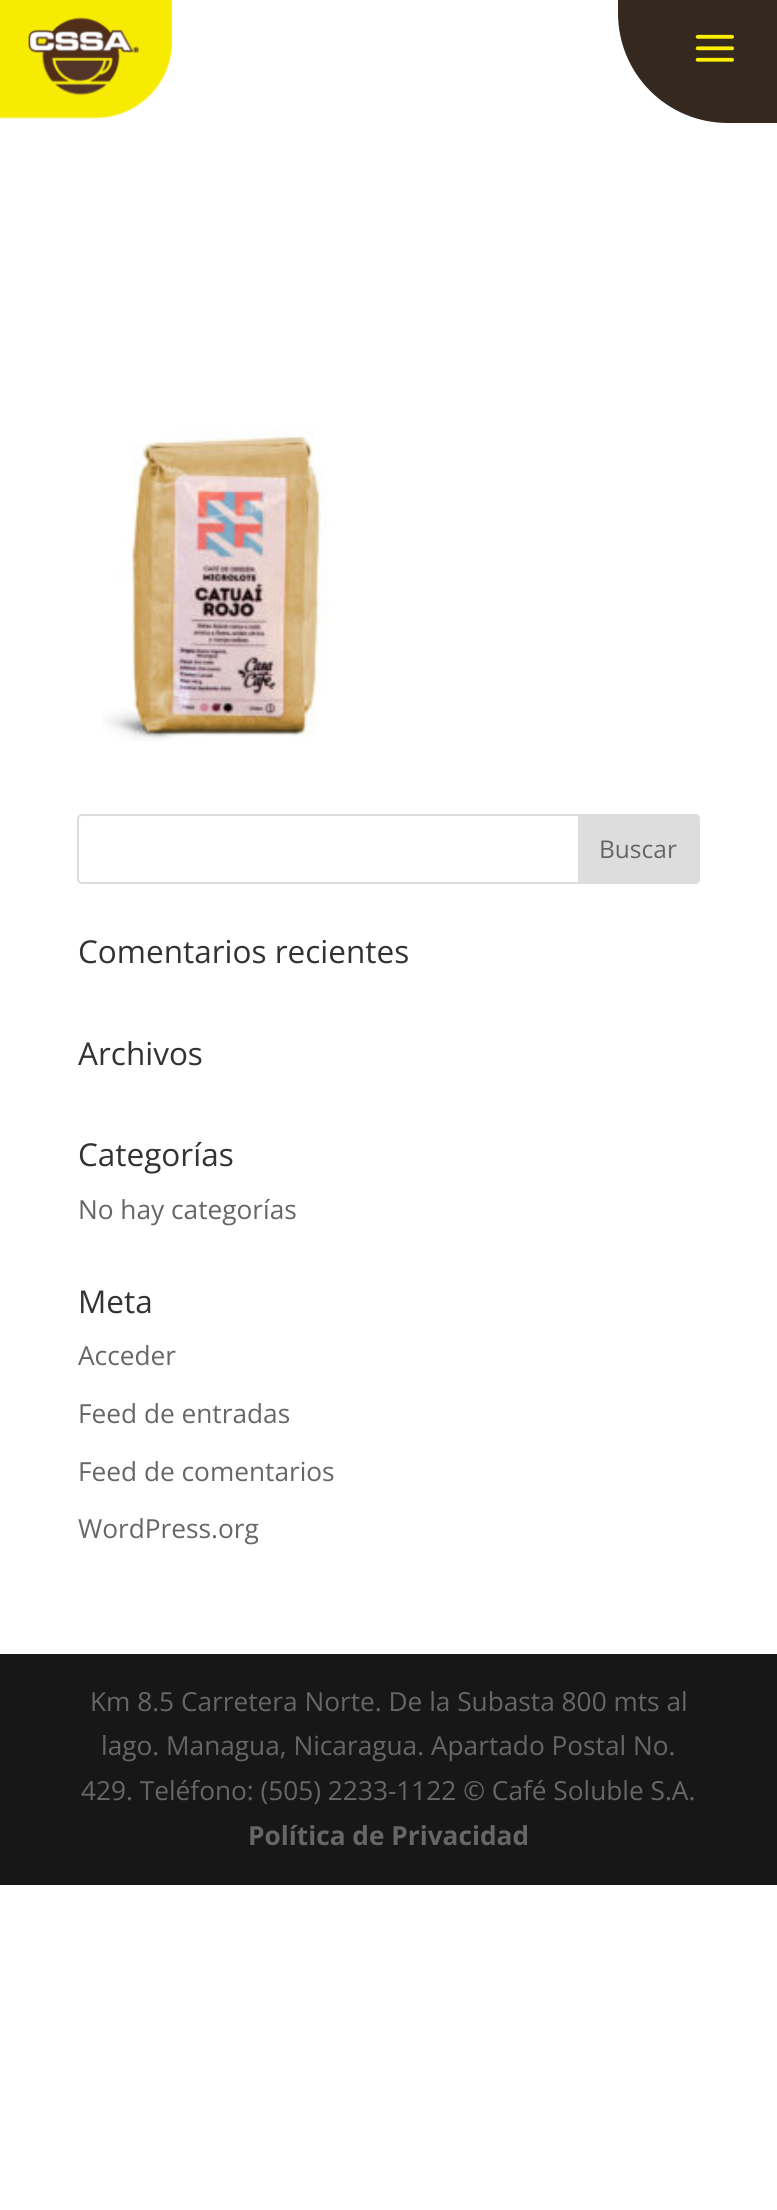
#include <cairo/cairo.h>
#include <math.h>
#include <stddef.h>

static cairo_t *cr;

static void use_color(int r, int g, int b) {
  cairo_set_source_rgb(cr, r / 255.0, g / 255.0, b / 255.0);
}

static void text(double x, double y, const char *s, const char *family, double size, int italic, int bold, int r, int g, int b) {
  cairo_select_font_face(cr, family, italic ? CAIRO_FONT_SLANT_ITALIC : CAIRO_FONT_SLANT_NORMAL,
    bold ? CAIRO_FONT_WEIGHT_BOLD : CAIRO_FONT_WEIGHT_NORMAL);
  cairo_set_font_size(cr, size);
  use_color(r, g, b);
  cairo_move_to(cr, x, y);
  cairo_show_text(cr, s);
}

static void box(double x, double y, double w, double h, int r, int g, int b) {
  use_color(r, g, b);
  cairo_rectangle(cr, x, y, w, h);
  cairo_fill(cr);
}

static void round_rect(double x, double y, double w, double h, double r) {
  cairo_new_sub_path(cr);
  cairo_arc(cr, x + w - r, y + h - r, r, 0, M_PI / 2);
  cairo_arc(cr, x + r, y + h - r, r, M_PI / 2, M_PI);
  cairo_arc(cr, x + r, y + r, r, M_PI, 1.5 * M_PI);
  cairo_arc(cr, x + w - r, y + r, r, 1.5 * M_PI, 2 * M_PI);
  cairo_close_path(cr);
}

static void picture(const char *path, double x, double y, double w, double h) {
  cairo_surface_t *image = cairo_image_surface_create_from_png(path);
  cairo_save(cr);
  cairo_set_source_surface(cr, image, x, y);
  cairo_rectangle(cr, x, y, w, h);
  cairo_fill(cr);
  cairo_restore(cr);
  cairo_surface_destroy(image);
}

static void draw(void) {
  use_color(255, 255, 255);
  cairo_paint(cr);
  picture("img_01.png", 0, 0, 173, 119);
  use_color(53, 40, 31);
  cairo_new_path(cr);
  cairo_move_to(cr, 618, 0);
  cairo_line_to(cr, 777, 0);
  cairo_line_to(cr, 777, 123);
  cairo_line_to(cr, 728, 123);
  cairo_curve_to(cr, 667, 123, 618, 74, 618, 13);
  cairo_close_path(cr);
  cairo_fill(cr);
  picture("img_02.png", 695, 34, 39, 28);
  picture("img_03.png", 101, 429, 228, 312);
  round_rect(78, 815, 621, 68, 4);
  use_color(221, 221, 221);
  cairo_stroke(cr);
  cairo_new_path(cr);
  cairo_move_to(cr, 579, 815);
  cairo_line_to(cr, 695, 815);
  cairo_curve_to(cr, 697, 815, 699, 817, 699, 819);
  cairo_line_to(cr, 699, 879);
  cairo_curve_to(cr, 699, 881, 697, 883, 695, 883);
  cairo_line_to(cr, 579, 883);
  cairo_close_path(cr);
  cairo_fill_preserve(cr);
  cairo_stroke(cr);
  box(0, 1654, 777, 231, 23, 23, 23);
  text(599, 858, "Buscar", "Open Sans", 24.5, 0, 0, 102, 102, 102);
  text(78, 963, "Comentarios recientes", "Open Sans", 31.5, 0, 0, 51, 51, 51);
  text(78, 1065, "Archivos", "Open Sans", 31.5, 0, 0, 51, 51, 51);
  text(78, 1166, "Categorías", "Open Sans", 31.5, 0, 0, 51, 51, 51);
  text(78, 1219, "No hay categorías", "Open Sans", 26.25, 0, 0, 102, 102, 102);
  text(78, 1313, "Meta", "Open Sans", 31.5, 0, 0, 51, 51, 51);
  text(78, 1365, "Acceder", "Open Sans", 26.25, 0, 0, 102, 102, 102);
  text(78, 1423, "Feed de entradas", "Open Sans", 26.25, 0, 0, 102, 102, 102);
  text(78, 1481, "Feed de comentarios", "Open Sans", 26.25, 0, 0, 102, 102, 102);
  text(78, 1538, "WordPress.org", "Open Sans", 26.25, 0, 0, 102, 102, 102);
  text(90, 1711, "Km 8.5 Carretera Norte. De la Subasta 800 mts al", "Open Sans", 26.25, 0, 0, 102, 102, 102);
  text(101, 1755, "lago. Managua, Nicaragua. Apartado Postal No.", "Open Sans", 26.25, 0, 0, 102, 102, 102);
  text(81, 1800, "429. Teléfono: (505) 2233-1122 © Café Soluble S.A.", "Open Sans", 26.25, 0, 0, 102, 102, 102);
  text(248, 1845, "Política de Privacidad", "Open Sans", 26.25, 0, 1, 102, 102, 102);
}

int main(void) {
  cairo_surface_t *surface = cairo_image_surface_create(CAIRO_FORMAT_RGB24, 777, 2210);
  cr = cairo_create(surface);
  cairo_font_options_t *options = cairo_font_options_create();
  cairo_font_options_set_hint_metrics(options, CAIRO_HINT_METRICS_OFF);
  cairo_font_options_set_hint_style(options, CAIRO_HINT_STYLE_NONE);
  cairo_set_font_options(cr, options);
  cairo_set_miter_limit(cr, 4);
  draw();
  cairo_surface_write_to_png(surface, "out.png");
  cairo_font_options_destroy(options);
  cairo_destroy(cr);
  cairo_surface_destroy(surface);
  return 0;
}
